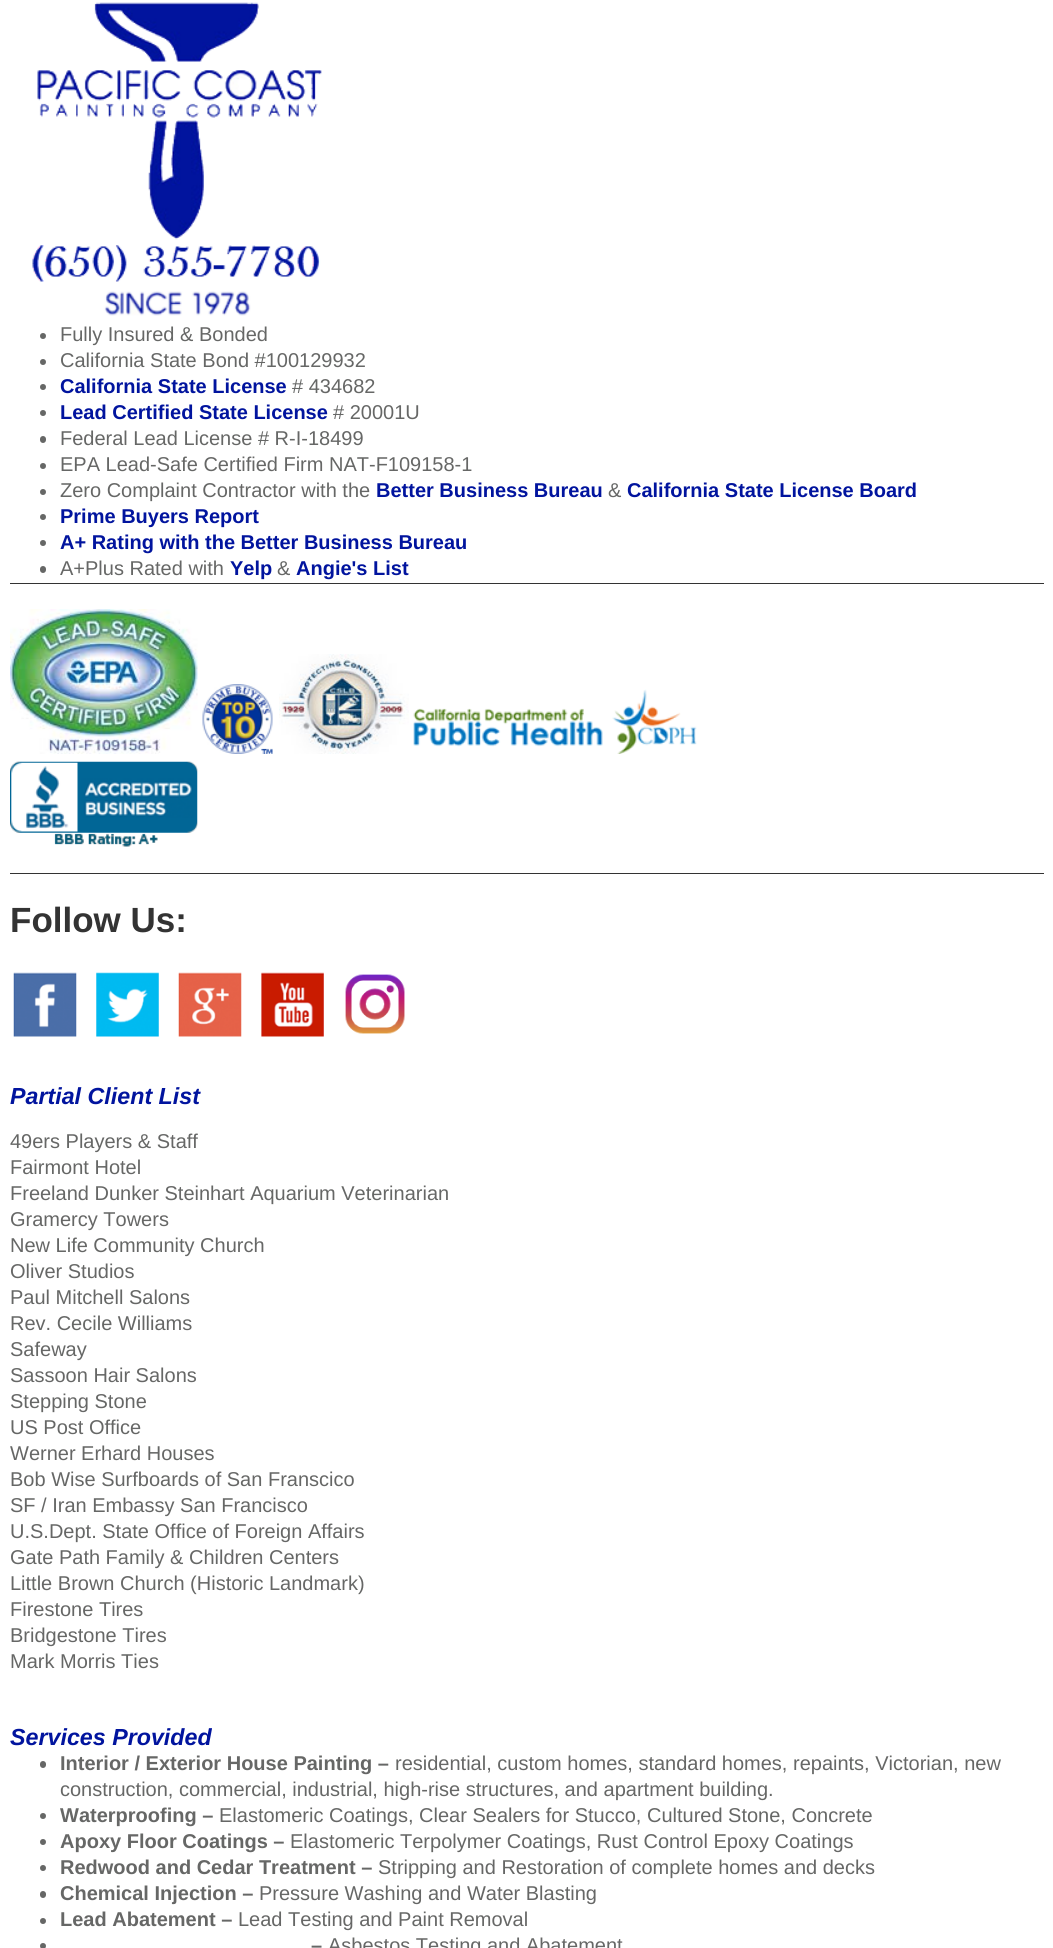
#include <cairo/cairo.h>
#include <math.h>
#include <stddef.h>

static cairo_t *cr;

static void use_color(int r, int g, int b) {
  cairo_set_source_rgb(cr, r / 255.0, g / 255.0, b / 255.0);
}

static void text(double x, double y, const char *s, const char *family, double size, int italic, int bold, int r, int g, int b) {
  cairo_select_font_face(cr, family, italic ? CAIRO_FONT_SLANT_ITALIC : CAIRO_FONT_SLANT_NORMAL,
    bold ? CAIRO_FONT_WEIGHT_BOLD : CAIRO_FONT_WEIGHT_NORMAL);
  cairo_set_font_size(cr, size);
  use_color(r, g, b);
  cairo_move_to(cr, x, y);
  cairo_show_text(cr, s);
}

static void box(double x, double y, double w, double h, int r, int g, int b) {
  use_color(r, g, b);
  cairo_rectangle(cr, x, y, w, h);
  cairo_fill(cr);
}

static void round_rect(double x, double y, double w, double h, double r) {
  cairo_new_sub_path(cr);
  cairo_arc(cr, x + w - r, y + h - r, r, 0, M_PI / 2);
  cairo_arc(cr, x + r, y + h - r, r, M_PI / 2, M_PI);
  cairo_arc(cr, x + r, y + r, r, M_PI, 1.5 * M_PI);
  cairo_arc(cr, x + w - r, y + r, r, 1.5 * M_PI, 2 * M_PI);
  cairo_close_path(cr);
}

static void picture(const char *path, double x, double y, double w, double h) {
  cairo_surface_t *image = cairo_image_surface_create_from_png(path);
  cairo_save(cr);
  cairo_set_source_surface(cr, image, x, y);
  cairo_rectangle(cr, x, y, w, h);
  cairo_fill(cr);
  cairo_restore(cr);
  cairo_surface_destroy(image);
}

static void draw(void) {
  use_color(255, 255, 255);
  cairo_paint(cr);
  picture("img_01.png", 32, 2, 290, 314);
  use_color(102, 103, 102);
  cairo_arc(cr, 43, 336, 3, 0, 2 * M_PI);
  cairo_fill(cr);
  cairo_arc(cr, 43, 362, 3, 0, 2 * M_PI);
  cairo_fill(cr);
  cairo_arc(cr, 43, 387, 3, 0, 2 * M_PI);
  cairo_fill(cr);
  cairo_arc(cr, 43, 413, 3, 0, 2 * M_PI);
  cairo_fill(cr);
  round_rect(40, 436, 6, 7, 3);
  cairo_fill(cr);
  cairo_arc(cr, 43, 466, 3, 0, 2 * M_PI);
  cairo_fill(cr);
  cairo_arc(cr, 43, 492, 3, 0, 2 * M_PI);
  cairo_fill(cr);
  cairo_arc(cr, 43, 517, 3, 0, 2 * M_PI);
  cairo_fill(cr);
  cairo_arc(cr, 43, 543, 3, 0, 2 * M_PI);
  cairo_fill(cr);
  round_rect(40, 566, 6, 7, 3);
  cairo_fill(cr);
  box(10, 583, 1034, 1, 51, 51, 51);
  box(10, 873, 1034, 1, 51, 51, 51);
  picture("img_02.png", 10, 609, 188, 145);
  picture("img_03.png", 202, 684, 71, 70);
  picture("img_04.png", 279, 654, 130, 100);
  picture("img_05.png", 413, 689, 284, 65);
  picture("img_06.png", 10, 761, 188, 86);
  picture("img_07.png", 13, 972, 64, 65);
  picture("img_08.png", 96, 972, 63, 65);
  picture("img_09.png", 178, 972, 64, 65);
  picture("img_10.png", 261, 972, 63, 65);
  picture("img_11.png", 345, 974, 60, 60);
  use_color(102, 103, 102);
  round_rect(40, 1761, 6, 7, 3);
  cairo_fill(cr);
  cairo_arc(cr, 43, 1816, 3, 0, 2 * M_PI);
  cairo_fill(cr);
  cairo_arc(cr, 43, 1842, 3, 0, 2 * M_PI);
  cairo_fill(cr);
  cairo_arc(cr, 43, 1868, 3, 0, 2 * M_PI);
  cairo_fill(cr);
  round_rect(40, 1891, 6, 7, 3);
  cairo_fill(cr);
  cairo_arc(cr, 43, 1921, 3, 0, 2 * M_PI);
  cairo_fill(cr);
  cairo_arc(cr, 43, 1946, 3, 0, 2 * M_PI);
  cairo_fill(cr);
  text(60, 341, "Fully Insured & Bonded", "Liberation Sans", 20, 0, 0, 102, 103, 102);
  text(60, 367, "California State Bond #100129932", "Liberation Sans", 20, 0, 0, 102, 103, 102);
  text(60, 393, "California State License", "Liberation Sans", 20, 0, 1, 1, 20, 158);
  text(292, 393, "# 434682", "Liberation Sans", 20, 0, 0, 102, 103, 102);
  text(60, 419, "Lead Certified State License", "Liberation Sans", 20, 0, 1, 1, 20, 158);
  text(333, 419, "# 20001U", "Liberation Sans", 20, 0, 0, 102, 103, 102);
  text(60, 445, "Federal Lead License # R-I-18499", "Liberation Sans", 20, 0, 0, 102, 103, 102);
  text(60, 471, "EPA Lead-Safe Certified Firm NAT-F109158-1", "Liberation Sans", 20, 0, 0, 102, 103, 102);
  text(60, 497, "Zero Complaint Contractor with the", "Liberation Sans", 20, 0, 0, 102, 103, 102);
  text(376, 497, "Better Business Bureau", "Liberation Sans", 20, 0, 1, 1, 20, 158);
  text(608, 497, "&", "Liberation Sans", 20, 0, 0, 102, 103, 102);
  text(627, 497, "California State License Board", "Liberation Sans", 20, 0, 1, 1, 20, 158);
  text(60, 523, "Prime Buyers Report", "Liberation Sans", 20, 0, 1, 1, 20, 158);
  text(60, 549, "A+ Rating with the Better Business Bureau", "Liberation Sans", 20, 0, 1, 1, 20, 158);
  text(60, 575, "A+Plus Rated with", "Liberation Sans", 20, 0, 0, 102, 103, 102);
  text(230, 575, "Yelp", "Liberation Sans", 20, 0, 1, 1, 20, 158);
  text(277, 575, "&", "Liberation Sans", 20, 0, 0, 102, 103, 102);
  text(296, 575, "Angie's List", "Liberation Sans", 20, 0, 1, 1, 20, 158);
  text(10, 932, "Follow Us:", "Liberation Sans", 35, 0, 1, 51, 51, 51);
  text(10, 1104, "Partial Client List", "Liberation Sans", 23.25, 1, 1, 1, 20, 158);
  text(10, 1148, "49ers Players & Staff", "Liberation Sans", 20, 0, 0, 102, 103, 102);
  text(10, 1174, "Fairmont Hotel", "Liberation Sans", 20, 0, 0, 102, 103, 102);
  text(10, 1200, "Freeland Dunker Steinhart Aquarium Veterinarian", "Liberation Sans", 20, 0, 0, 102, 103, 102);
  text(10, 1226, "Gramercy Towers", "Liberation Sans", 20, 0, 0, 102, 103, 102);
  text(10, 1252, "New Life Community Church", "Liberation Sans", 20, 0, 0, 102, 103, 102);
  text(10, 1278, "Oliver Studios", "Liberation Sans", 20, 0, 0, 102, 103, 102);
  text(10, 1304, "Paul Mitchell Salons", "Liberation Sans", 20, 0, 0, 102, 103, 102);
  text(10, 1330, "Rev. Cecile Williams", "Liberation Sans", 20, 0, 0, 102, 103, 102);
  text(10, 1356, "Safeway", "Liberation Sans", 20, 0, 0, 102, 103, 102);
  text(10, 1382, "Sassoon Hair Salons", "Liberation Sans", 20, 0, 0, 102, 103, 102);
  text(10, 1408, "Stepping Stone", "Liberation Sans", 20, 0, 0, 102, 103, 102);
  text(10, 1434, "US Post Office", "Liberation Sans", 20, 0, 0, 102, 103, 102);
  text(10, 1460, "Werner Erhard Houses", "Liberation Sans", 20, 0, 0, 102, 103, 102);
  text(10, 1486, "Bob Wise Surfboards of San Franscico", "Liberation Sans", 20, 0, 0, 102, 103, 102);
  text(10, 1512, "SF / Iran Embassy San Francisco", "Liberation Sans", 20, 0, 0, 102, 103, 102);
  text(10, 1538, "U.S.Dept. State Office of Foreign Affairs", "Liberation Sans", 20, 0, 0, 102, 103, 102);
  text(10, 1564, "Gate Path Family & Children Centers", "Liberation Sans", 20, 0, 0, 102, 103, 102);
  text(10, 1590, "Little Brown Church (Historic Landmark)", "Liberation Sans", 20, 0, 0, 102, 103, 102);
  text(10, 1616, "Firestone Tires", "Liberation Sans", 20, 0, 0, 102, 103, 102);
  text(10, 1642, "Bridgestone Tires", "Liberation Sans", 20, 0, 0, 102, 103, 102);
  text(10, 1668, "Mark Morris Ties", "Liberation Sans", 20, 0, 0, 102, 103, 102);
  text(10, 1745, "Services Provided", "Liberation Sans", 23.25, 1, 1, 1, 20, 158);
  text(60, 1770, "Interior / Exterior House Painting –", "Liberation Sans", 20, 0, 1, 102, 103, 102);
  text(395, 1770, "residential, custom homes, standard homes, repaints, Victorian, new", "Liberation Sans", 20, 0, 0, 102, 103, 102);
  text(60, 1796, "construction, commercial, industrial, high-rise structures, and apartment building.", "Liberation Sans", 20, 0, 0, 102, 103, 102);
  text(60, 1822, "Waterproofing –", "Liberation Sans", 20, 0, 1, 102, 103, 102);
  text(219, 1822, "Elastomeric Coatings, Clear Sealers for Stucco, Cultured Stone, Concrete", "Liberation Sans", 20, 0, 0, 102, 103, 102);
  text(60, 1848, "Apoxy Floor Coatings –", "Liberation Sans", 20, 0, 1, 102, 103, 102);
  text(290, 1848, "Elastomeric Terpolymer Coatings, Rust Control Epoxy Coatings", "Liberation Sans", 20, 0, 0, 102, 103, 102);
  text(60, 1874, "Redwood and Cedar Treatment –", "Liberation Sans", 20, 0, 1, 102, 103, 102);
  text(378, 1874, "Stripping and Restoration of complete homes and decks", "Liberation Sans", 20, 0, 0, 102, 103, 102);
  text(60, 1900, "Chemical Injection –", "Liberation Sans", 20, 0, 1, 102, 103, 102);
  text(259, 1900, "Pressure Washing and Water Blasting", "Liberation Sans", 20, 0, 0, 102, 103, 102);
  text(60, 1926, "Lead Abatement –", "Liberation Sans", 20, 0, 1, 102, 103, 102);
  text(238, 1926, "Lead Testing and Paint Removal", "Liberation Sans", 20, 0, 0, 102, 103, 102);
  text(311, 1952, "–", "Liberation Sans", 20, 0, 1, 102, 103, 102);
  text(328, 1952, "Asbestos Testing and Abatement", "Liberation Sans", 20, 0, 0, 102, 103, 102);
}

int main(void) {
  cairo_surface_t *surface = cairo_image_surface_create(CAIRO_FORMAT_RGB24, 1053, 1948);
  cr = cairo_create(surface);
  cairo_font_options_t *options = cairo_font_options_create();
  cairo_font_options_set_hint_metrics(options, CAIRO_HINT_METRICS_OFF);
  cairo_font_options_set_hint_style(options, CAIRO_HINT_STYLE_NONE);
  cairo_set_font_options(cr, options);
  cairo_set_miter_limit(cr, 4);
  draw();
  cairo_surface_write_to_png(surface, "out.png");
  cairo_font_options_destroy(options);
  cairo_destroy(cr);
  cairo_surface_destroy(surface);
  return 0;
}
